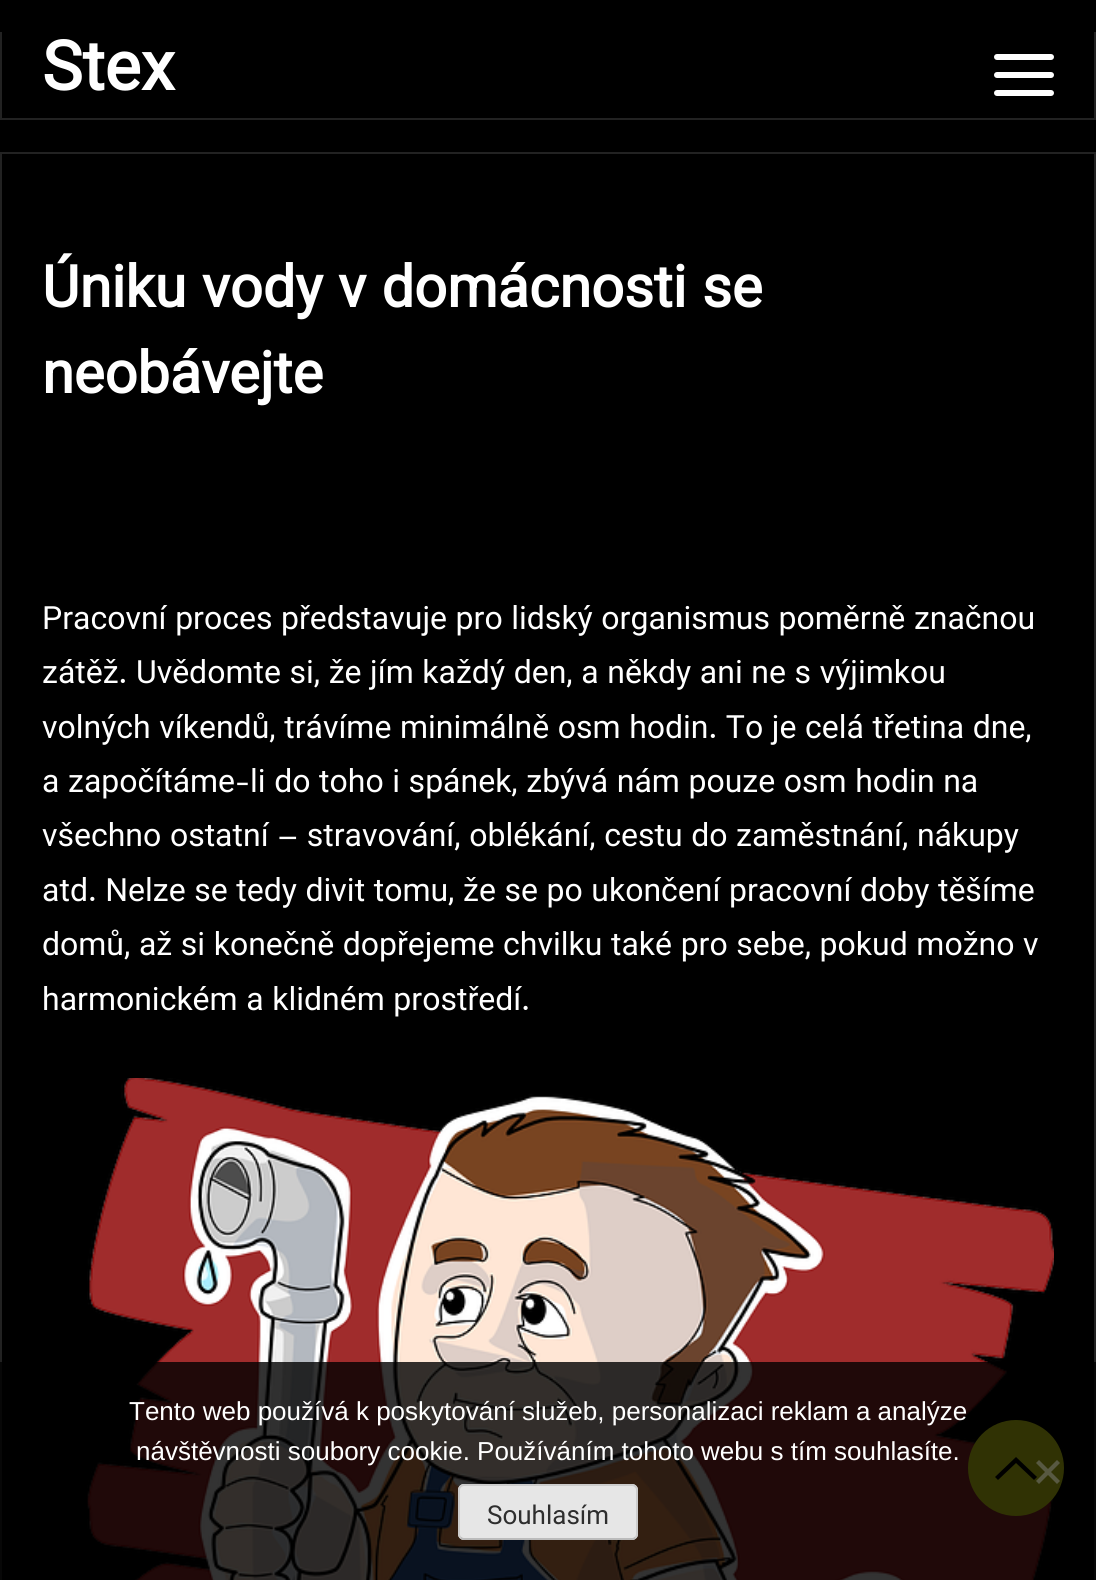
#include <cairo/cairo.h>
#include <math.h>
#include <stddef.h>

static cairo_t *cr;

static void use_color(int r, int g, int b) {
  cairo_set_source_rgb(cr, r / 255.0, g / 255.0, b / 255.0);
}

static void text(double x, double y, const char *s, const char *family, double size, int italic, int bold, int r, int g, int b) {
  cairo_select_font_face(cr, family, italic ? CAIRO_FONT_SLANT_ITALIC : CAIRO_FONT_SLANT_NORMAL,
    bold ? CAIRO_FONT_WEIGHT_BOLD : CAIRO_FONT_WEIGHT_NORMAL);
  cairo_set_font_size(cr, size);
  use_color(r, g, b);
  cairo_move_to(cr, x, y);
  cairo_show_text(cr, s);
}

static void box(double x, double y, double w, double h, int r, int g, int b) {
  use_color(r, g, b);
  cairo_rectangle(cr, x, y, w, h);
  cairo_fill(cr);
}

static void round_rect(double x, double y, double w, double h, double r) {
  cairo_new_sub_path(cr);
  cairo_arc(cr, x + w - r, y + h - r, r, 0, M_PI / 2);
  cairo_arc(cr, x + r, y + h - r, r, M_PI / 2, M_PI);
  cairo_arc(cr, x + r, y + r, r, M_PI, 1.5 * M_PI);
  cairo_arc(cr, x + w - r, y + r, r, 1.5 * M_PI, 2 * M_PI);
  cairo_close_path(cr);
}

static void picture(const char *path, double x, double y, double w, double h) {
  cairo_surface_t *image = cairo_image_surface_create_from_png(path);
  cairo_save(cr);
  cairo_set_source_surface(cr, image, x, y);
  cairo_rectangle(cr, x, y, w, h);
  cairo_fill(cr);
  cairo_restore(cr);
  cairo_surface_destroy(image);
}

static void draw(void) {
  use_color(0, 0, 0);
  cairo_paint(cr);
  box(1094, 32, 2, 88, 34, 34, 34);
  box(0, 118, 1096, 2, 34, 34, 34);
  box(0, 32, 2, 88, 34, 34, 34);
  use_color(255, 255, 255);
  round_rect(994, 54, 60, 6, 3);
  cairo_fill(cr);
  round_rect(994, 72, 60, 6, 3);
  cairo_fill(cr);
  round_rect(994, 90, 60, 6, 3);
  cairo_fill(cr);
  cairo_rectangle(cr, 1, 153, 1094, 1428);
  use_color(34, 34, 34);
  cairo_stroke(cr);
  picture("img_01.png", 87, 1078, 967, 502);
  use_color(238, 251, 19);
  cairo_arc(cr, 1016, 1468, 48, 0, 2 * M_PI);
  cairo_fill(cr);
  use_color(0, 0, 0);
  cairo_new_path(cr);
  cairo_move_to(cr, 1037, 1477);
  cairo_line_to(cr, 1034, 1480);
  cairo_line_to(cr, 1016, 1463);
  cairo_line_to(cr, 998, 1480);
  cairo_line_to(cr, 995, 1477);
  cairo_line_to(cr, 1016, 1457);
  cairo_line_to(cr, 1037, 1477);
  cairo_fill(cr);
  cairo_set_source_rgba(cr, 0, 0, 0, 0.8);
  cairo_rectangle(cr, 0, 1362, 1096, 218);
  cairo_fill(cr);
  use_color(88, 89, 66);
  cairo_new_path(cr);
  cairo_move_to(cr, 1057, 1460);
  cairo_line_to(cr, 1060, 1463);
  cairo_line_to(cr, 1039, 1484);
  cairo_line_to(cr, 1036, 1481);
  cairo_close_path(cr);
  cairo_fill(cr);
  cairo_new_path(cr);
  cairo_move_to(cr, 1036, 1463);
  cairo_line_to(cr, 1039, 1460);
  cairo_line_to(cr, 1060, 1481);
  cairo_line_to(cr, 1057, 1484);
  cairo_close_path(cr);
  cairo_fill(cr);
  use_color(230, 230, 230);
  round_rect(458, 1484, 180, 56, 6);
  cairo_fill(cr);
  cairo_new_path(cr);
  cairo_move_to(cr, 635.5, 1537.5);
  cairo_curve_to(cr, 634.5, 1538.5, 633.5, 1539, 632, 1539);
  cairo_line_to(cr, 464, 1539);
  cairo_curve_to(cr, 462.5, 1539, 461.5, 1538.5, 460.5, 1537.5);
  use_color(187, 187, 187);
  cairo_stroke(cr);
  cairo_new_path(cr);
  cairo_move_to(cr, 460.5, 1537.5);
  cairo_curve_to(cr, 459.5, 1536.5, 459, 1535.5, 459, 1534);
  cairo_line_to(cr, 459, 1490);
  cairo_curve_to(cr, 459, 1488.5, 459.5, 1487.5, 460.5, 1486.5);
  cairo_curve_to(cr, 461.5, 1485.5, 462.5, 1485, 464, 1485);
  cairo_line_to(cr, 632, 1485);
  cairo_curve_to(cr, 633.5, 1485, 634.5, 1485.5, 635.5, 1486.5);
  cairo_curve_to(cr, 636.5, 1487.5, 637, 1488.5, 637, 1490);
  cairo_line_to(cr, 637, 1534);
  cairo_curve_to(cr, 637, 1535.5, 636.5, 1536.5, 635.5, 1537.5);
  use_color(204, 204, 204);
  cairo_stroke(cr);
  text(42, 90, "Stex", "Vazirmatn", 68, 0, 1, 255, 255, 255);
  text(42, 307, "Úniku vody v domácnosti se", "Vazirmatn", 57.7, 0, 1, 255, 255, 255);
  text(42, 393, "neobávejte", "Vazirmatn", 57.7, 0, 1, 255, 255, 255);
  text(42, 629, "Pracovní proces představuje pro lidský organismus poměrně značnou", "Vazirmatn", 32, 0, 0, 255, 255, 255);
  text(42, 683, "zátěž. Uvědomte si, že jím každý den, a někdy ani ne s výjimkou", "Vazirmatn", 32, 0, 0, 255, 255, 255);
  text(42, 738, "volných víkendů, trávíme minimálně osm hodin. To je celá třetina dne,", "Vazirmatn", 32, 0, 0, 255, 255, 255);
  text(42, 792, "a započítáme-li do toho i spánek, zbývá nám pouze osm hodin na", "Vazirmatn", 32, 0, 0, 255, 255, 255);
  text(42, 846, "všechno ostatní – stravování, oblékání, cestu do zaměstnání, nákupy", "Vazirmatn", 32, 0, 0, 255, 255, 255);
  text(42, 901, "atd. Nelze se tedy divit tomu, že se po ukončení pracovní doby těšíme", "Vazirmatn", 32, 0, 0, 255, 255, 255);
  text(42, 955, "domů, až si konečně dopřejeme chvilku také pro sebe, pokud možno v", "Vazirmatn", 32, 0, 0, 255, 255, 255);
  text(42, 1010, "harmonickém a klidném prostředí.", "Vazirmatn", 32, 0, 0, 255, 255, 255);
  text(129, 1420, "Tento web používá k poskytování služeb, personalizaci reklam a analýze", "Liberation Sans", 26, 0, 0, 255, 255, 255);
  text(136, 1460, "návštěvnosti soubory cookie. Používáním tohoto webu s tím souhlasíte.", "Liberation Sans", 26, 0, 0, 255, 255, 255);
  text(487, 1524, "Souhlasím", "Roboto", 26, 0, 0, 46, 46, 46);
}

int main(void) {
  cairo_surface_t *surface = cairo_image_surface_create(CAIRO_FORMAT_RGB24, 1096, 1580);
  cr = cairo_create(surface);
  cairo_font_options_t *options = cairo_font_options_create();
  cairo_font_options_set_hint_metrics(options, CAIRO_HINT_METRICS_OFF);
  cairo_font_options_set_hint_style(options, CAIRO_HINT_STYLE_NONE);
  cairo_set_font_options(cr, options);
  cairo_set_miter_limit(cr, 4);
  draw();
  cairo_surface_write_to_png(surface, "out.png");
  cairo_font_options_destroy(options);
  cairo_destroy(cr);
  cairo_surface_destroy(surface);
  return 0;
}
